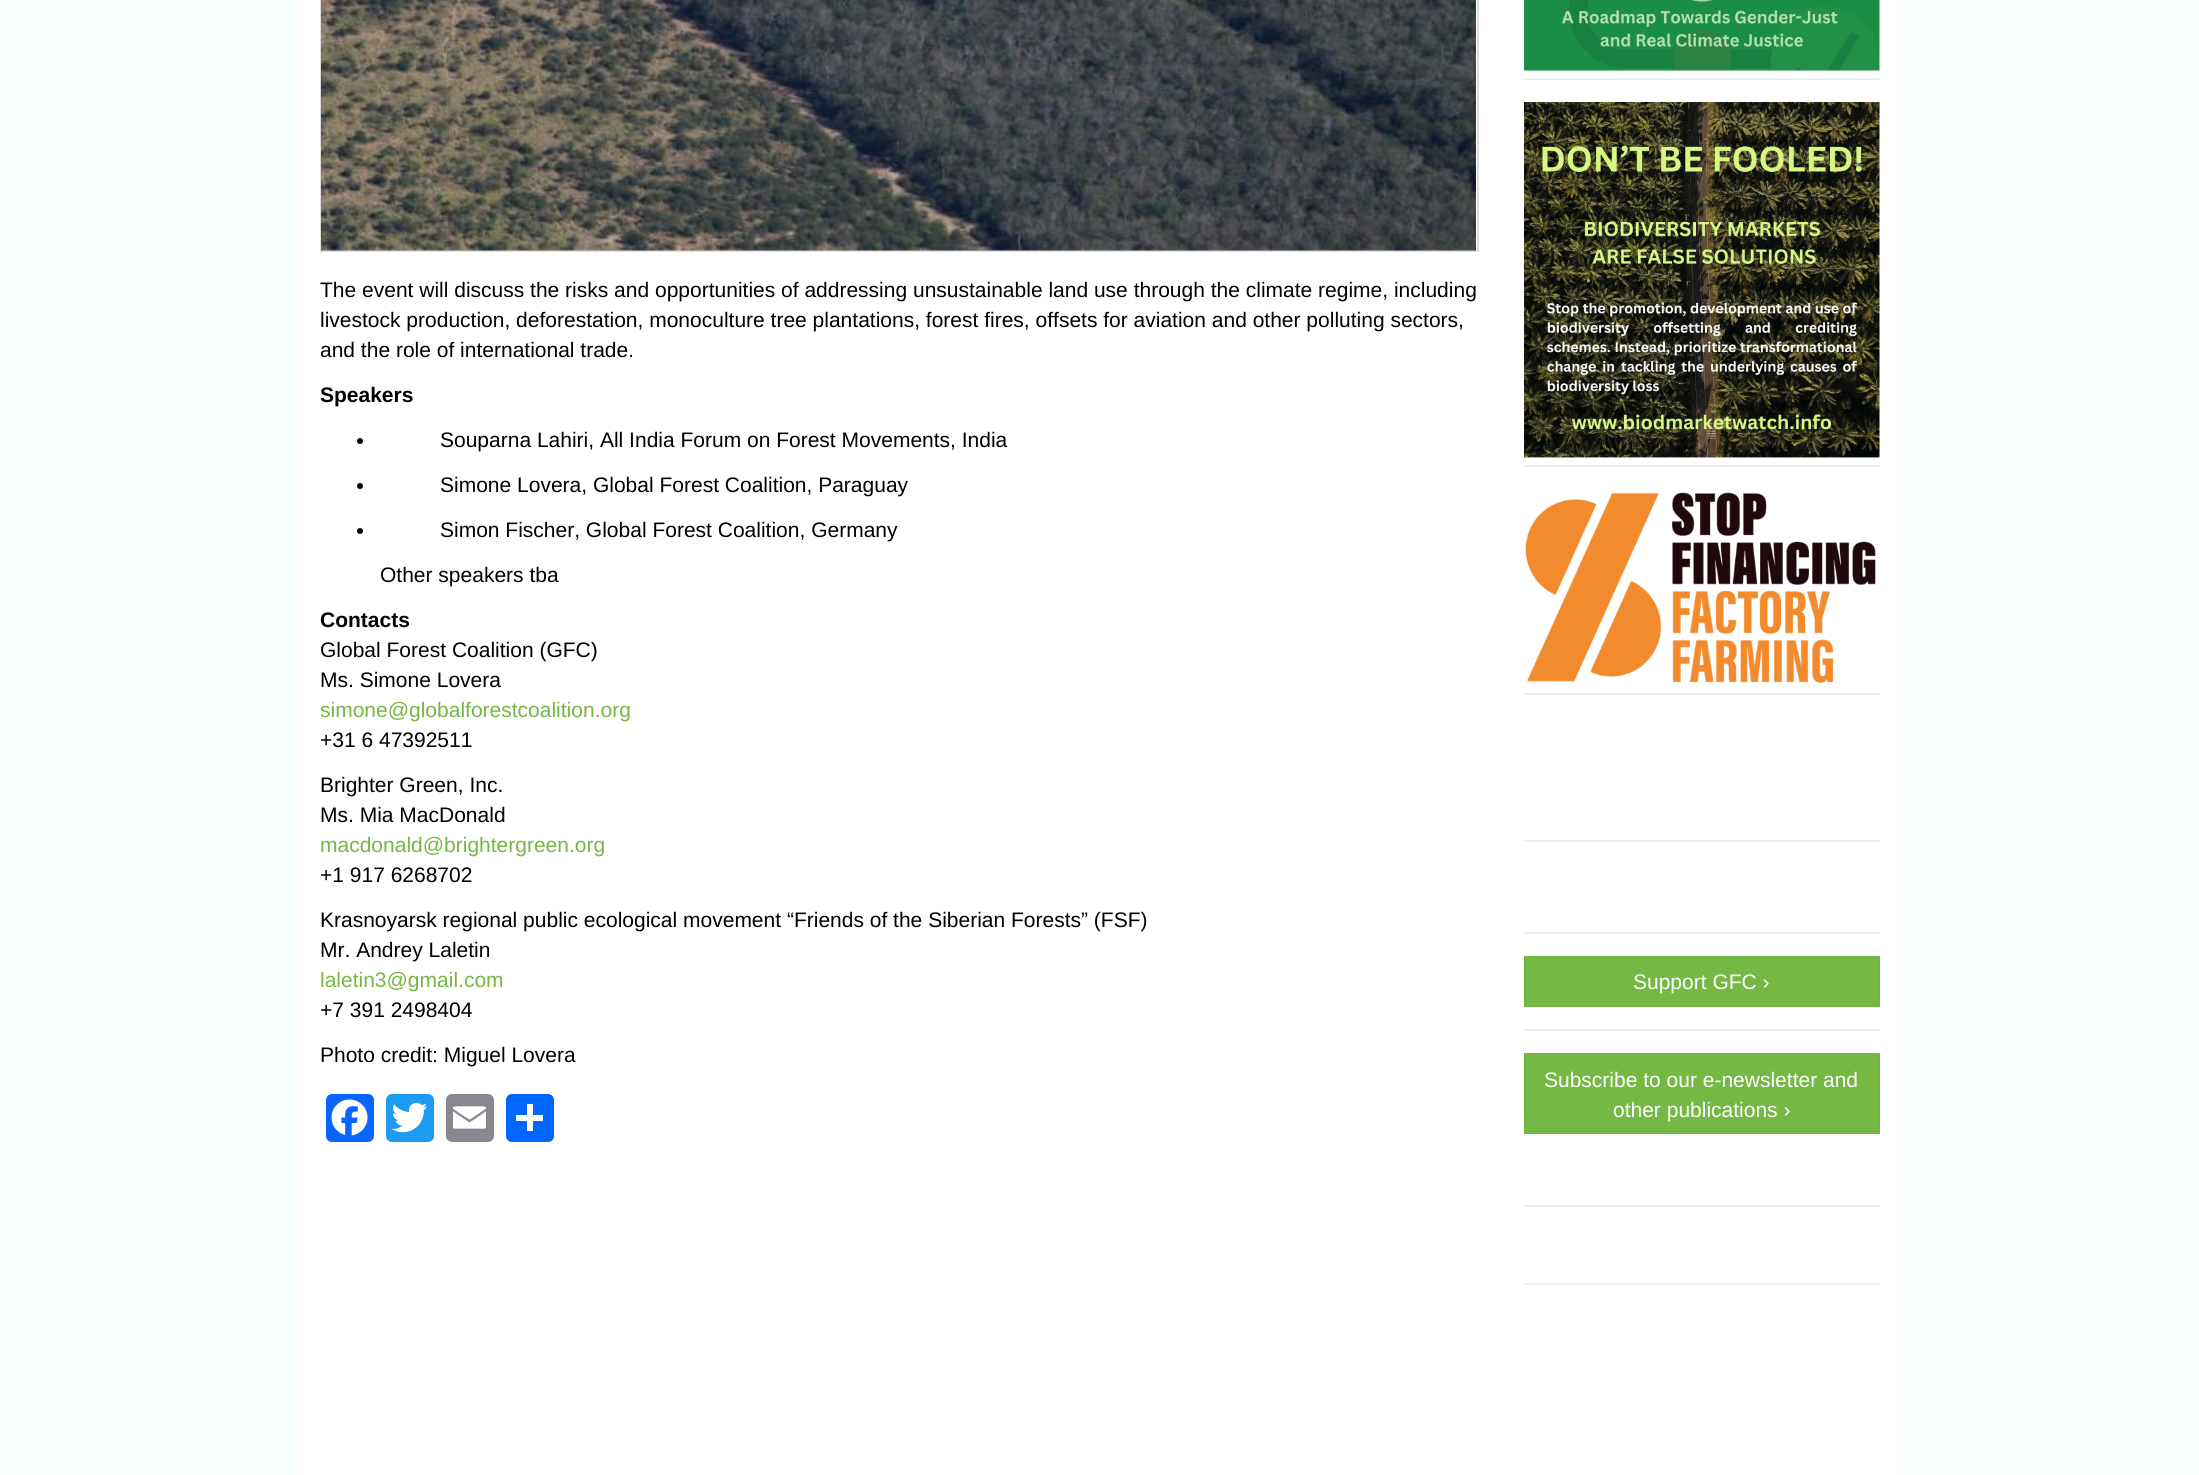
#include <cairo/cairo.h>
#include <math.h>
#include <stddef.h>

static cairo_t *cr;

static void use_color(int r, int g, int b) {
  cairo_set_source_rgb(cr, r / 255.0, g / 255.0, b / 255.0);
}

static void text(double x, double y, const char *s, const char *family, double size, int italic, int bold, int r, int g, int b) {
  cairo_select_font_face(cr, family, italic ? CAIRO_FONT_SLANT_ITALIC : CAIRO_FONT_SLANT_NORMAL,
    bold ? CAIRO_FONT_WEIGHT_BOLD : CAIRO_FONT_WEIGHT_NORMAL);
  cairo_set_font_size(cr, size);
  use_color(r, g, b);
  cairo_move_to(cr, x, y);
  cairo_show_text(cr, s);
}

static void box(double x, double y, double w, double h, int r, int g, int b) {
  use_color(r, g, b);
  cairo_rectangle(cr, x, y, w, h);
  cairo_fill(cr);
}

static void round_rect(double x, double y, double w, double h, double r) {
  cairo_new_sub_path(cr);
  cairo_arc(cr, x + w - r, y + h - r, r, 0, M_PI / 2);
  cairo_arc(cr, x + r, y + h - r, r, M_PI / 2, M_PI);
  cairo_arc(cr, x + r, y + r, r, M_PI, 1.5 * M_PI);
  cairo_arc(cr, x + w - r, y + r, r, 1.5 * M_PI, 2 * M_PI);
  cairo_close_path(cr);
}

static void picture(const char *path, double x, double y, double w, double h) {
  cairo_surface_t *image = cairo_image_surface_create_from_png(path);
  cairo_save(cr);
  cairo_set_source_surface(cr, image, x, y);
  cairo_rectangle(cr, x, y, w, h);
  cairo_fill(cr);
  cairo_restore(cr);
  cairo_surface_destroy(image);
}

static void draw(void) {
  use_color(248, 255, 253);
  cairo_paint(cr);
  box(297, 0, 1605, 1475, 255, 255, 255);
  cairo_rectangle(cr, 321, -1, 1157, 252);
  use_color(221, 221, 221);
  cairo_stroke(cr);
  picture("img_01.png", 321, 0, 1155, 251);
  use_color(0, 0, 0);
  cairo_arc(cr, 360, 441, 3, 0, 2 * M_PI);
  cairo_fill(cr);
  cairo_arc(cr, 360, 486, 3, 0, 2 * M_PI);
  cairo_fill(cr);
  cairo_arc(cr, 360, 531, 3, 0, 2 * M_PI);
  cairo_fill(cr);
  use_color(8, 102, 255);
  round_rect(326, 1094, 48, 48, 6);
  cairo_fill(cr);
  picture("img_02.png", 331, 1099, 37, 37);
  use_color(29, 155, 240);
  round_rect(386, 1094, 48, 48, 6);
  cairo_fill(cr);
  picture("img_03.png", 391, 1102, 37, 31);
  use_color(136, 137, 144);
  round_rect(446, 1094, 48, 48, 6);
  cairo_fill(cr);
  picture("img_04.png", 453, 1106, 33, 23);
  use_color(1, 102, 255);
  round_rect(506, 1094, 48, 48, 6);
  cairo_fill(cr);
  box(527, 1104, 6, 27, 255, 255, 255);
  box(516, 1115, 27, 6, 255, 255, 255);
  box(1524, 78, 356, 2, 232, 239, 237);
  picture("img_05.png", 1524, 0, 356, 71);
  box(1524, 465, 356, 2, 232, 239, 237);
  picture("img_06.png", 1524, 102, 356, 356);
  box(1524, 693, 356, 2, 232, 239, 237);
  picture("img_07.png", 1525, 492, 351, 191);
  box(1524, 840, 356, 2, 232, 239, 237);
  box(1524, 932, 356, 2, 232, 239, 237);
  box(1524, 1029, 356, 2, 232, 239, 237);
  use_color(117, 184, 68);
  cairo_rectangle(cr, 1525, 957, 354, 49);
  cairo_fill_preserve(cr);
  use_color(114, 181, 65);
  cairo_stroke(cr);
  use_color(117, 184, 68);
  cairo_rectangle(cr, 1525, 1054, 354, 79);
  cairo_fill_preserve(cr);
  use_color(114, 181, 65);
  cairo_stroke(cr);
  box(1524, 1205, 356, 2, 232, 239, 237);
  box(1524, 1283, 356, 2, 232, 239, 237);
  text(320, 297, "The event will discuss the risks and opportunities of addressing unsustainable land use through the climate regime, including", "Liberation Sans", 21, 0, 0, 0, 0, 0);
  text(320, 327, "livestock production, deforestation, monoculture tree plantations, forest fires, offsets for aviation and other polluting sectors,", "Liberation Sans", 21, 0, 0, 0, 0, 0);
  text(320, 357, "and the role of international trade.", "Liberation Sans", 21, 0, 0, 0, 0, 0);
  text(320, 402, "Speakers", "Liberation Sans", 21, 0, 1, 0, 0, 0);
  text(440, 447, "Souparna Lahiri, All India Forum on Forest Movements, India", "Liberation Sans", 21, 0, 0, 0, 0, 0);
  text(440, 492, "Simone Lovera, Global Forest Coalition, Paraguay", "Liberation Sans", 21, 0, 0, 0, 0, 0);
  text(440, 537, "Simon Fischer, Global Forest Coalition, Germany", "Liberation Sans", 21, 0, 0, 0, 0, 0);
  text(380, 582, "Other speakers tba", "Liberation Sans", 21, 0, 0, 0, 0, 0);
  text(320, 627, "Contacts", "Liberation Sans", 21, 0, 1, 0, 0, 0);
  text(320, 657, "Global Forest Coalition (GFC)", "Liberation Sans", 21, 0, 0, 0, 0, 0);
  text(320, 687, "Ms. Simone Lovera", "Liberation Sans", 21, 0, 0, 0, 0, 0);
  text(320, 717, "simone@globalforestcoalition.org", "Liberation Sans", 21, 0, 0, 116, 183, 67);
  text(320, 747, "+31 6 47392511", "Liberation Sans", 21, 0, 0, 0, 0, 0);
  text(320, 792, "Brighter Green, Inc.", "Liberation Sans", 21, 0, 0, 0, 0, 0);
  text(320, 822, "Ms. Mia MacDonald", "Liberation Sans", 21, 0, 0, 0, 0, 0);
  text(320, 852, "macdonald@brightergreen.org", "Liberation Sans", 21, 0, 0, 116, 183, 67);
  text(320, 882, "+1 917 6268702", "Liberation Sans", 21, 0, 0, 0, 0, 0);
  text(320, 927, "Krasnoyarsk regional public ecological movement “Friends of the Siberian Forests” (FSF)", "Liberation Sans", 21, 0, 0, 0, 0, 0);
  text(320, 957, "Mr. Andrey Laletin", "Liberation Sans", 21, 0, 0, 0, 0, 0);
  text(320, 987, "laletin3@gmail.com", "Liberation Sans", 21, 0, 0, 116, 183, 67);
  text(320, 1017, "+7 391 2498404", "Liberation Sans", 21, 0, 0, 0, 0, 0);
  text(320, 1062, "Photo credit: Miguel Lovera", "Liberation Sans", 21, 0, 0, 0, 0, 0);
  text(1633, 989, "Support GFC ›", "Liberation Sans", 21, 0, 0, 255, 255, 255);
  text(1544, 1087, "Subscribe to our e-newsletter and", "Liberation Sans", 21, 0, 0, 255, 255, 255);
  text(1613, 1117, "other publications ›", "Liberation Sans", 21, 0, 0, 255, 255, 255);
}

int main(void) {
  cairo_surface_t *surface = cairo_image_surface_create(CAIRO_FORMAT_RGB24, 2199, 1475);
  cr = cairo_create(surface);
  cairo_font_options_t *options = cairo_font_options_create();
  cairo_font_options_set_hint_metrics(options, CAIRO_HINT_METRICS_OFF);
  cairo_font_options_set_hint_style(options, CAIRO_HINT_STYLE_NONE);
  cairo_set_font_options(cr, options);
  cairo_set_miter_limit(cr, 4);
  draw();
  cairo_surface_write_to_png(surface, "out.png");
  cairo_font_options_destroy(options);
  cairo_destroy(cr);
  cairo_surface_destroy(surface);
  return 0;
}
